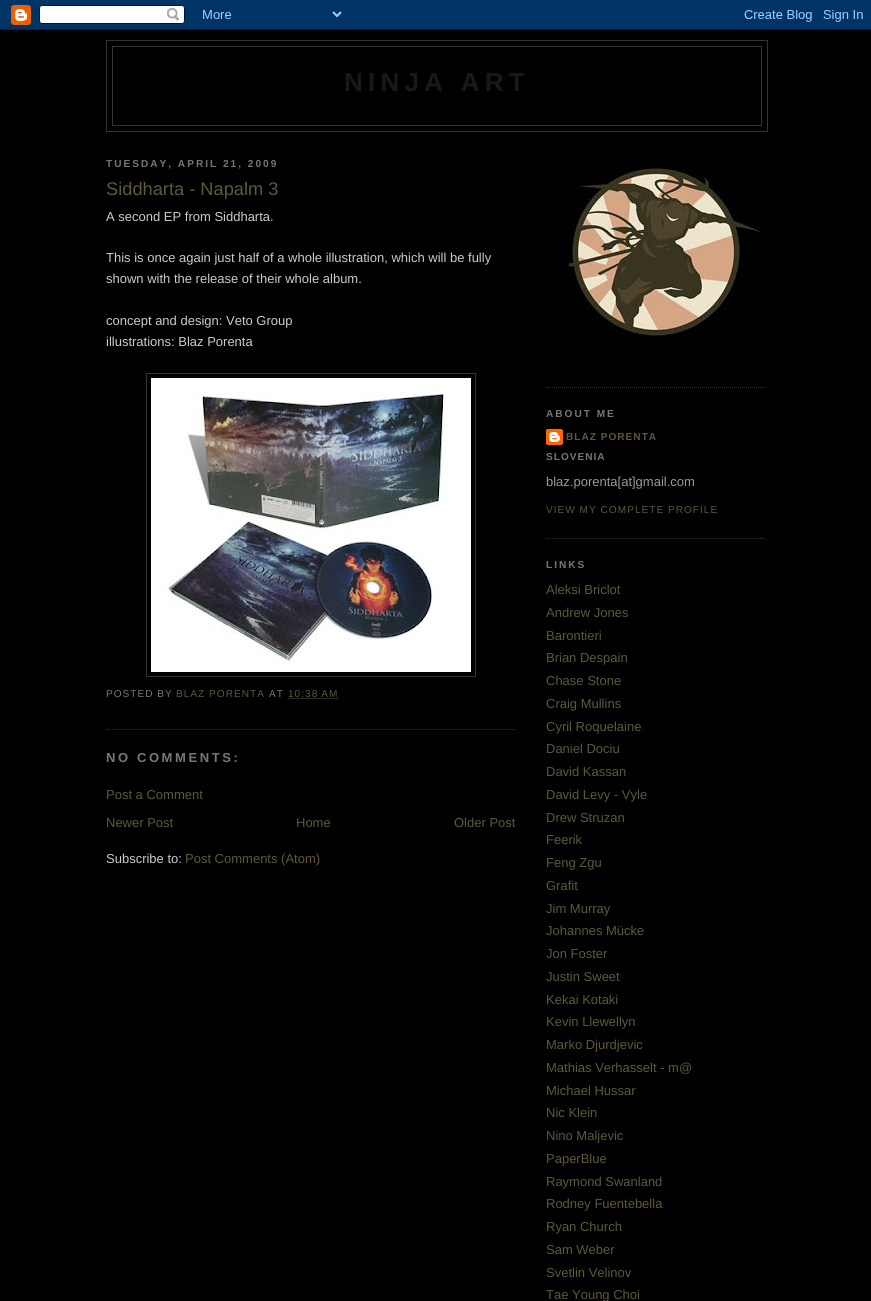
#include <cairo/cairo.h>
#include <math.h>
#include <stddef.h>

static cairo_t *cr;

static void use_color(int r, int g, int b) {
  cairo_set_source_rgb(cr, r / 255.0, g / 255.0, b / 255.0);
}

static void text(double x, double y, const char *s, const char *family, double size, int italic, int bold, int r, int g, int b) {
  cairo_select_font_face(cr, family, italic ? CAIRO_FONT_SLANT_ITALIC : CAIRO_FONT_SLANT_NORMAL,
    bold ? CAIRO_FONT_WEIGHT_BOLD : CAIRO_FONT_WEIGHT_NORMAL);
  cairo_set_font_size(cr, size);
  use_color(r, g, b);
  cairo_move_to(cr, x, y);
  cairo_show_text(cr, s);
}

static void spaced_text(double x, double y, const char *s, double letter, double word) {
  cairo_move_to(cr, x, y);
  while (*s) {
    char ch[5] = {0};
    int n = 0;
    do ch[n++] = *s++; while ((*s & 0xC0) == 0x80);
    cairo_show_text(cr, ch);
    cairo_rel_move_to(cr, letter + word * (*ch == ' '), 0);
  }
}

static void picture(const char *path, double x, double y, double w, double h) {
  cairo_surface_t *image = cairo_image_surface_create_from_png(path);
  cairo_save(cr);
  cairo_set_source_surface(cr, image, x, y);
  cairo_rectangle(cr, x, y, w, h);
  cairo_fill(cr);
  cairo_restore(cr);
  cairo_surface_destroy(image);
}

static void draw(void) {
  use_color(0, 0, 0);
  cairo_paint(cr);
  picture("img_01.png", 0, 0, 871, 30);
  cairo_rectangle(cr, 106.5, 40.5, 661, 91);
  use_color(51, 51, 51);
  cairo_set_line_width(cr, 1);
  cairo_stroke(cr);
  cairo_rectangle(cr, 112.5, 46.5, 649, 79);
  cairo_stroke(cr);
  cairo_new_path(cr);
  cairo_move_to(cr, 106, 729.5);
  cairo_line_to(cr, 516, 729.5);
  cairo_set_dash(cr, (double[]){1, 1}, 2, 0);
  cairo_stroke(cr);
  cairo_rectangle(cr, 146.5, 373.5, 329, 303);
  cairo_set_dash(cr, NULL, 0, 0);
  cairo_stroke(cr);
  picture("img_02.png", 151, 378, 320, 294);
  cairo_new_path(cr);
  cairo_move_to(cr, 288.5, 698.5);
  cairo_line_to(cr, 339, 698.5);
  use_color(94, 88, 56);
  cairo_set_dash(cr, (double[]){1, 1}, 2, 0);
  cairo_stroke(cr);
  cairo_new_path(cr);
  cairo_move_to(cr, 546, 387.5);
  cairo_line_to(cr, 766, 387.5);
  use_color(51, 51, 51);
  cairo_stroke(cr);
  picture("img_03.png", 562, 166, 200, 176);
  cairo_new_path(cr);
  cairo_move_to(cr, 546, 538.5);
  cairo_line_to(cr, 766, 538.5);
  cairo_stroke(cr);
  picture("img_04.png", 546, 429, 17, 16);
  cairo_select_font_face(cr, "Liberation Sans", CAIRO_FONT_SLANT_NORMAL, CAIRO_FONT_WEIGHT_BOLD);
  cairo_set_font_size(cr, 26);
  use_color(25, 25, 25);
  spaced_text(344, 91, "NINJA ART", 5.25, 0);
  cairo_set_font_size(cr, 10.1);
  use_color(119, 119, 119);
  spaced_text(106, 167, "TUESDAY, APRIL 21, 2009", 2, 0);
  text(106, 195, "Siddharta - Napalm 3", "Liberation Sans", 18.25, 0, 0, 94, 88, 56);
  text(106, 221, "A second EP from Siddharta.", "Liberation Sans", 13, 0, 0, 204, 204, 204);
  text(106, 262, "This is once again just half of a whole illustration, which will be fully", "Liberation Sans", 13, 0, 0, 204, 204, 204);
  text(106, 283, "shown with the release of their whole album.", "Liberation Sans", 13, 0, 0, 204, 204, 204);
  text(106, 325, "concept and design: Veto Group", "Liberation Sans", 13, 0, 0, 204, 204, 204);
  text(106, 346, "illustrations: Blaz Porenta", "Liberation Sans", 13, 0, 0, 204, 204, 204);
  cairo_set_font_size(cr, 10.1);
  use_color(119, 119, 119);
  spaced_text(106, 697, "POSTED BY", 1, 0);
  use_color(94, 88, 56);
  spaced_text(176, 697, "BLAZ PORENTA", 1, 0);
  use_color(119, 119, 119);
  spaced_text(269, 697, "AT", 1, 0);
  use_color(94, 88, 56);
  spaced_text(288, 697, "10:38 AM", 1, 0);
  cairo_select_font_face(cr, "Liberation Sans", CAIRO_FONT_SLANT_NORMAL, CAIRO_FONT_WEIGHT_BOLD);
  cairo_set_font_size(cr, 13);
  use_color(119, 119, 119);
  spaced_text(106, 762, "NO COMMENTS:", 2.6, 0);
  text(106, 799, "Post a Comment", "Liberation Sans", 13, 0, 0, 94, 88, 56);
  text(106, 827, "Newer Post", "Liberation Sans", 13, 0, 0, 94, 88, 56);
  text(296, 827, "Home", "Liberation Sans", 13, 0, 0, 94, 88, 56);
  text(454, 827, "Older Post", "Liberation Sans", 13, 0, 0, 94, 88, 56);
  text(106, 863, "Subscribe to:", "Liberation Sans", 13, 0, 0, 204, 204, 204);
  text(185, 863, "Post Comments (Atom)", "Liberation Sans", 13, 0, 0, 94, 88, 56);
  cairo_select_font_face(cr, "Liberation Sans", CAIRO_FONT_SLANT_NORMAL, CAIRO_FONT_WEIGHT_BOLD);
  cairo_set_font_size(cr, 10.1);
  use_color(119, 119, 119);
  spaced_text(546, 417, "ABOUT ME", 2, 0);
  use_color(94, 88, 56);
  spaced_text(566, 440, "BLAZ PORENTA", 1, 0);
  use_color(119, 119, 119);
  spaced_text(546, 460, "SLOVENIA", 1, 0);
  text(546, 486, "blaz.porenta[at]gmail.com", "Liberation Sans", 13, 0, 0, 153, 153, 153);
  cairo_set_font_size(cr, 10.1);
  use_color(94, 88, 56);
  spaced_text(546, 513, "VIEW MY COMPLETE PROFILE", 1, 0);
  cairo_select_font_face(cr, "Liberation Sans", CAIRO_FONT_SLANT_NORMAL, CAIRO_FONT_WEIGHT_BOLD);
  use_color(119, 119, 119);
  spaced_text(546, 568, "LINKS", 2, 0);
  text(546, 594, "Aleksi Briclot", "Liberation Sans", 13, 0, 0, 94, 88, 56);
  text(546, 617, "Andrew Jones", "Liberation Sans", 13, 0, 0, 94, 88, 56);
  text(546, 640, "Barontieri", "Liberation Sans", 13, 0, 0, 94, 88, 56);
  text(546, 662, "Brian Despain", "Liberation Sans", 13, 0, 0, 94, 88, 56);
  text(546, 685, "Chase Stone", "Liberation Sans", 13, 0, 0, 94, 88, 56);
  text(546, 708, "Craig Mullins", "Liberation Sans", 13, 0, 0, 94, 88, 56);
  text(546, 731, "Cyril Roquelaine", "Liberation Sans", 13, 0, 0, 94, 88, 56);
  text(546, 753, "Daniel Dociu", "Liberation Sans", 13, 0, 0, 94, 88, 56);
  text(546, 776, "David Kassan", "Liberation Sans", 13, 0, 0, 94, 88, 56);
  text(546, 799, "David Levy - Vyle", "Liberation Sans", 13, 0, 0, 94, 88, 56);
  text(546, 822, "Drew Struzan", "Liberation Sans", 13, 0, 0, 94, 88, 56);
  text(546, 844, "Feerik", "Liberation Sans", 13, 0, 0, 94, 88, 56);
  text(546, 867, "Feng Zgu", "Liberation Sans", 13, 0, 0, 94, 88, 56);
  text(546, 890, "Grafit", "Liberation Sans", 13, 0, 0, 94, 88, 56);
  text(546, 913, "Jim Murray", "Liberation Sans", 13, 0, 0, 94, 88, 56);
  text(546, 935, "Johannes Mücke", "Liberation Sans", 13, 0, 0, 94, 88, 56);
  text(546, 958, "Jon Foster", "Liberation Sans", 13, 0, 0, 94, 88, 56);
  text(546, 981, "Justin Sweet", "Liberation Sans", 13, 0, 0, 94, 88, 56);
  text(546, 1004, "Kekai Kotaki", "Liberation Sans", 13, 0, 0, 94, 88, 56);
  text(546, 1026, "Kevin Llewellyn", "Liberation Sans", 13, 0, 0, 94, 88, 56);
  text(546, 1049, "Marko Djurdjevic", "Liberation Sans", 13, 0, 0, 94, 88, 56);
  text(546, 1072, "Mathias Verhasselt - m@", "Liberation Sans", 13, 0, 0, 94, 88, 56);
  text(546, 1095, "Michael Hussar", "Liberation Sans", 13, 0, 0, 94, 88, 56);
  text(546, 1117, "Nic Klein", "Liberation Sans", 13, 0, 0, 94, 88, 56);
  text(546, 1140, "Nino Maljevic", "Liberation Sans", 13, 0, 0, 94, 88, 56);
  text(546, 1163, "PaperBlue", "Liberation Sans", 13, 0, 0, 94, 88, 56);
  text(546, 1186, "Raymond Swanland", "Liberation Sans", 13, 0, 0, 94, 88, 56);
  text(546, 1208, "Rodney Fuentebella", "Liberation Sans", 13, 0, 0, 94, 88, 56);
  text(546, 1231, "Ryan Church", "Liberation Sans", 13, 0, 0, 94, 88, 56);
  text(546, 1254, "Sam Weber", "Liberation Sans", 13, 0, 0, 94, 88, 56);
  text(546, 1277, "Svetlin Velinov", "Liberation Sans", 13, 0, 0, 94, 88, 56);
  text(546, 1299, "Tae Young Choi", "Liberation Sans", 13, 0, 0, 94, 88, 56);
}

int main(void) {
  cairo_surface_t *surface = cairo_image_surface_create(CAIRO_FORMAT_RGB24, 871, 1301);
  cr = cairo_create(surface);
  cairo_font_options_t *options = cairo_font_options_create();
  cairo_font_options_set_hint_metrics(options, CAIRO_HINT_METRICS_OFF);
  cairo_font_options_set_hint_style(options, CAIRO_HINT_STYLE_NONE);
  cairo_set_font_options(cr, options);
  cairo_set_miter_limit(cr, 4);
  draw();
  cairo_surface_write_to_png(surface, "out.png");
  cairo_font_options_destroy(options);
  cairo_destroy(cr);
  cairo_surface_destroy(surface);
  return 0;
}
